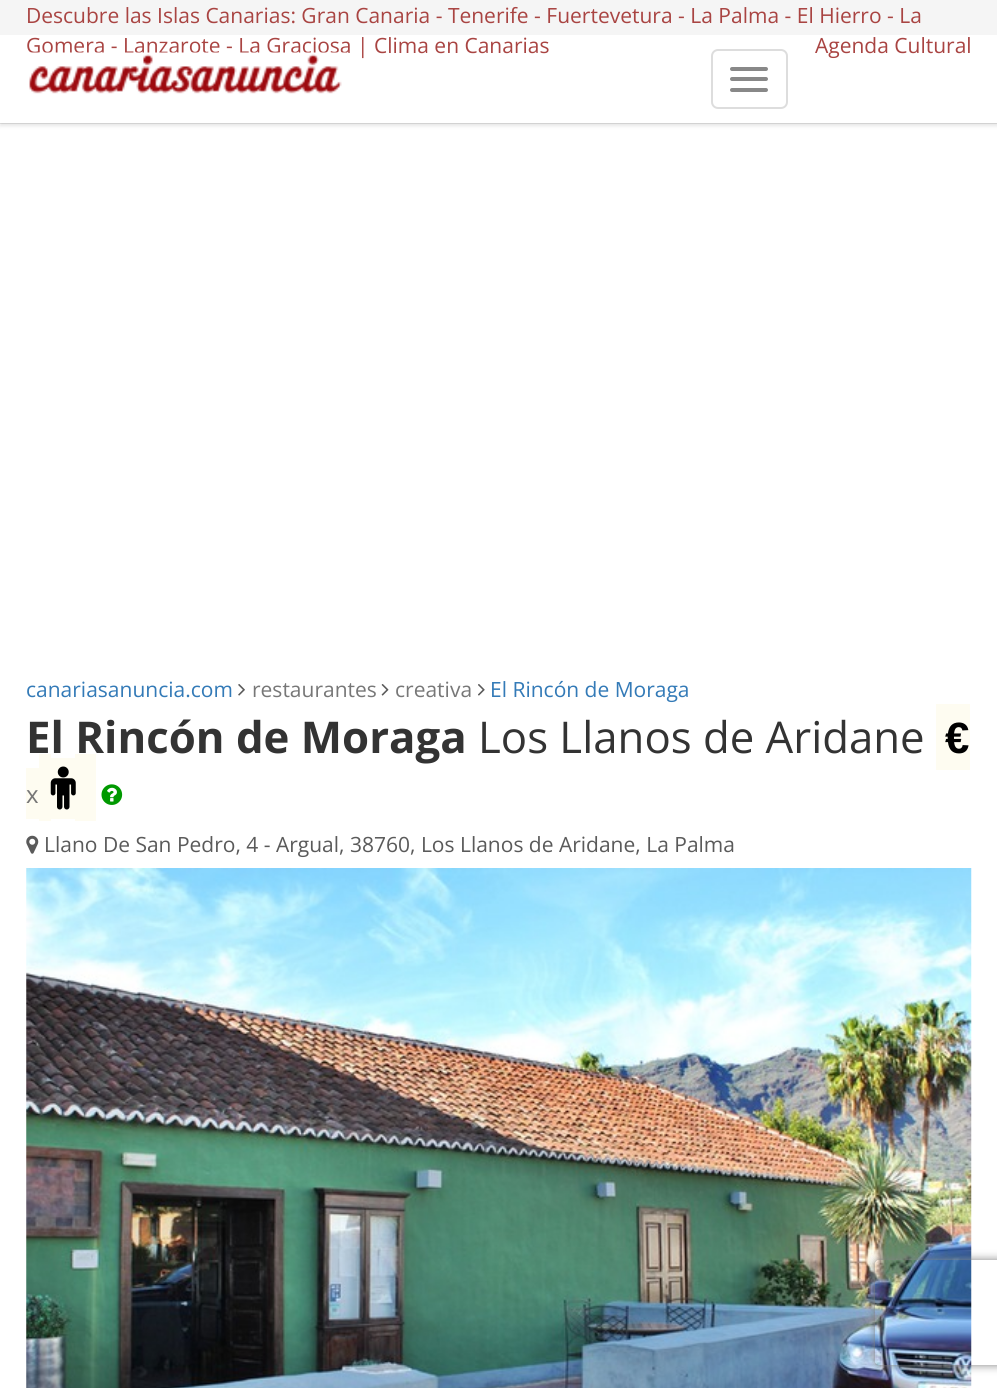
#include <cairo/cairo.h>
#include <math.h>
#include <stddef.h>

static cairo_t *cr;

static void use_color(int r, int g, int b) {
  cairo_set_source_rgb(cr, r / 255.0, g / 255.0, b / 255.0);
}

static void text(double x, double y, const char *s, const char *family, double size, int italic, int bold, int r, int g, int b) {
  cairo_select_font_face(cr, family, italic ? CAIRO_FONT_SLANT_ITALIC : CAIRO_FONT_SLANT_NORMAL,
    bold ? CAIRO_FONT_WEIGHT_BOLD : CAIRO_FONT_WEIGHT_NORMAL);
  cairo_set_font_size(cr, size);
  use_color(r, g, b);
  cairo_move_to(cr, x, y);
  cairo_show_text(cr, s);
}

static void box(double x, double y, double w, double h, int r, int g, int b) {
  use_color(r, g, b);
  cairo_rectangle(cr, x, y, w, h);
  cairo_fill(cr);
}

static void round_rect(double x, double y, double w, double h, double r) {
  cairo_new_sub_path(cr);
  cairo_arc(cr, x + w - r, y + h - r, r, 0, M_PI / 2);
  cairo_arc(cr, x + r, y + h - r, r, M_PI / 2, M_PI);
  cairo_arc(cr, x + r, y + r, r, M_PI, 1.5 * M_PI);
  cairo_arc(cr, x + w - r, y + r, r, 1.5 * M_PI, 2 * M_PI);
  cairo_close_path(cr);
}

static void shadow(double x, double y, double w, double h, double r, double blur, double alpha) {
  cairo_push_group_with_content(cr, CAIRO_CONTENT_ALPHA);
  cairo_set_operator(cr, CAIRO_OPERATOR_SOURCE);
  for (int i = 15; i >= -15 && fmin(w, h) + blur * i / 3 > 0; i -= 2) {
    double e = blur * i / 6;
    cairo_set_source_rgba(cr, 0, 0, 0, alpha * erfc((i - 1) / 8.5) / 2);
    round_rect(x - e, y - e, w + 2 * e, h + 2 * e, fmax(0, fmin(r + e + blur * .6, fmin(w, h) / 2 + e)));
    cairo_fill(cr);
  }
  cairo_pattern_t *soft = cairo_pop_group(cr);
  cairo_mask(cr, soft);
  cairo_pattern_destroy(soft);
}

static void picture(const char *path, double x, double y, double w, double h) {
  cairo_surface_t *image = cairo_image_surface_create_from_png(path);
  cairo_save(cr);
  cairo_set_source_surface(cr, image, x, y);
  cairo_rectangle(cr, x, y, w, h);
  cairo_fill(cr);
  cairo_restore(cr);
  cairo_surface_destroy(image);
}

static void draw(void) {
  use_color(255, 255, 255);
  cairo_paint(cr);
  use_color(230, 230, 230);
  cairo_new_path(cr);
  cairo_move_to(cr, 0, 122);
  cairo_line_to(cr, 0, 124);
  cairo_line_to(cr, 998, 124);
  cairo_line_to(cr, 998, 2);
  cairo_line_to(cr, 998, 122);
  cairo_close_path(cr);
  cairo_fill(cr);
  use_color(0, 0, 0);
  shadow(0, 4, 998, 122, 0, 2, 0.1);
  box(0, 35, 997, 88, 255, 255, 255);
  box(0, 0, 997, 35, 245, 245, 245);
  round_rect(712, 50, 75, 58, 6);
  use_color(221, 221, 221);
  cairo_stroke(cr);
  use_color(136, 136, 136);
  round_rect(730, 67, 38, 4, 2);
  cairo_fill(cr);
  round_rect(730, 77, 38, 4, 2);
  cairo_fill(cr);
  round_rect(730, 88, 38, 4, 2);
  cairo_fill(cr);
  picture("img_02.png", 238, 684, 7, 12);
  picture("img_03.png", 381, 684, 8, 12);
  picture("img_04.png", 478, 684, 7, 12);
  box(936, 704, 34, 66, 254, 252, 241);
  box(26, 768, 13, 51, 254, 252, 241);
  picture("img_06.png", 101, 784, 22, 21);
  picture("img_07.png", 26, 835, 13, 19);
  picture("img_08.png", 26, 868, 946, 520);
  cairo_save(cr);
  cairo_set_fill_rule(cr, CAIRO_FILL_RULE_EVEN_ODD);
  cairo_new_path(cr);
  cairo_move_to(cr, 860, 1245);
  cairo_line_to(cr, 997, 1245);
  cairo_line_to(cr, 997, 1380);
  cairo_line_to(cr, 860, 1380);
  cairo_close_path(cr);
  cairo_move_to(cr, 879, 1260);
  cairo_line_to(cr, 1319, 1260);
  cairo_curve_to(cr, 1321, 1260, 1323, 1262, 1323, 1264);
  cairo_line_to(cr, 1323, 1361);
  cairo_curve_to(cr, 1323, 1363, 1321, 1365, 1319, 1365);
  cairo_line_to(cr, 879, 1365);
  cairo_curve_to(cr, 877, 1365, 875, 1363, 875, 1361);
  cairo_line_to(cr, 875, 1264);
  cairo_curve_to(cr, 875, 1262, 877, 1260, 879, 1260);
  cairo_close_path(cr);
  cairo_clip(cr);
  use_color(128, 128, 128);
  shadow(875, 1260, 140, 105, 4, 4.5, 1);
  cairo_restore(cr);
  text(26, 23, "Descubre las Islas Canarias: Gran Canaria - Tenerife - Fuertevetura - La Palma - El Hierro - La", "Open Sans", 21, 0, 0, 169, 68, 66);
  text(26, 53, "Gomera - Lanzarote - La Graciosa | Clima en Canarias", "Open Sans", 21, 0, 0, 169, 68, 66);
  text(815, 53, "Agenda Cultural", "Open Sans", 21, 0, 0, 169, 68, 66);
  picture("img_01.png", 29, 52, 318, 42);
  text(26, 697, "canariasanuncia.com", "Open Sans", 21, 0, 0, 51, 122, 183);
  text(252, 697, "restaurantes", "Open Sans", 21, 0, 0, 119, 119, 119);
  text(395, 697, "creativa", "Open Sans", 21, 0, 0, 119, 119, 119);
  text(490, 697, "El Rincón de Moraga", "Open Sans", 21, 0, 0, 51, 122, 183);
  text(26, 753, "El Rincón de Moraga", "Open Sans", 43.75, 0, 1, 51, 51, 51);
  text(478, 753, "Los Llanos de Aridane", "Open Sans", 43.75, 0, 0, 51, 51, 51);
  box(39, 754, 12, 67, 254, 252, 241);
  box(51, 758, 24, 61, 254, 252, 241);
  box(75, 754, 21, 67, 254, 252, 241);
  text(945, 753, "€", "Liberation Sans", 43.75, 0, 1, 0, 0, 0);
  text(26, 803, "x", "Open Sans", 24, 0, 0, 119, 119, 119);
  picture("img_05.png", 50, 766, 26, 44);
  text(44, 852, "Llano De San Pedro, 4 - Argual, 38760, Los Llanos de Aridane, La Palma", "Open Sans", 21, 0, 0, 90, 90, 90);
}

int main(void) {
  cairo_surface_t *surface = cairo_image_surface_create(CAIRO_FORMAT_RGB24, 997, 1388);
  cr = cairo_create(surface);
  cairo_font_options_t *options = cairo_font_options_create();
  cairo_font_options_set_hint_metrics(options, CAIRO_HINT_METRICS_OFF);
  cairo_font_options_set_hint_style(options, CAIRO_HINT_STYLE_NONE);
  cairo_set_font_options(cr, options);
  cairo_set_miter_limit(cr, 4);
  draw();
  cairo_surface_write_to_png(surface, "out.png");
  cairo_font_options_destroy(options);
  cairo_destroy(cr);
  cairo_surface_destroy(surface);
  return 0;
}
